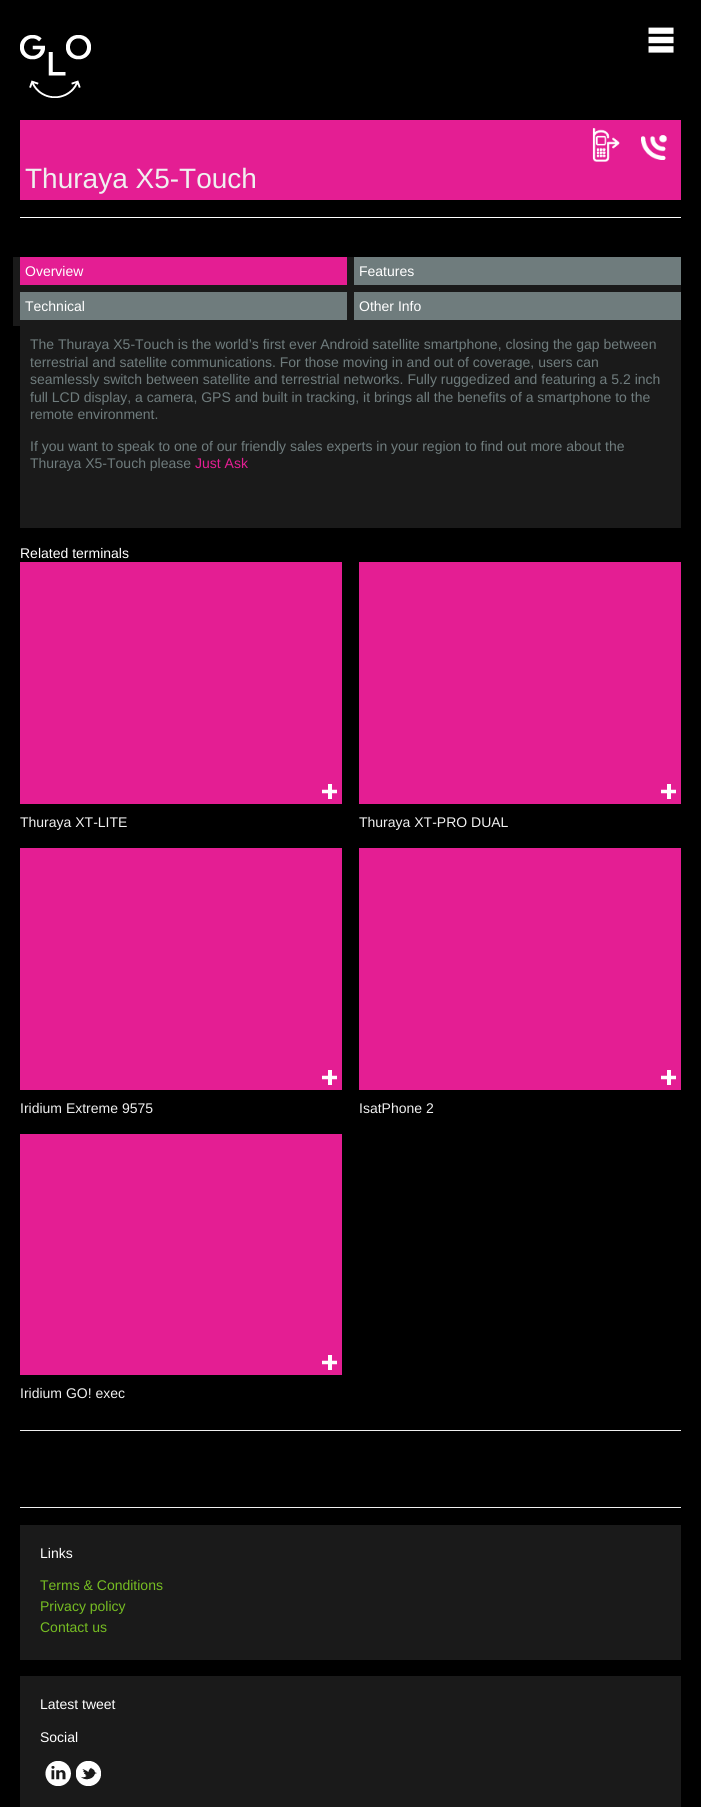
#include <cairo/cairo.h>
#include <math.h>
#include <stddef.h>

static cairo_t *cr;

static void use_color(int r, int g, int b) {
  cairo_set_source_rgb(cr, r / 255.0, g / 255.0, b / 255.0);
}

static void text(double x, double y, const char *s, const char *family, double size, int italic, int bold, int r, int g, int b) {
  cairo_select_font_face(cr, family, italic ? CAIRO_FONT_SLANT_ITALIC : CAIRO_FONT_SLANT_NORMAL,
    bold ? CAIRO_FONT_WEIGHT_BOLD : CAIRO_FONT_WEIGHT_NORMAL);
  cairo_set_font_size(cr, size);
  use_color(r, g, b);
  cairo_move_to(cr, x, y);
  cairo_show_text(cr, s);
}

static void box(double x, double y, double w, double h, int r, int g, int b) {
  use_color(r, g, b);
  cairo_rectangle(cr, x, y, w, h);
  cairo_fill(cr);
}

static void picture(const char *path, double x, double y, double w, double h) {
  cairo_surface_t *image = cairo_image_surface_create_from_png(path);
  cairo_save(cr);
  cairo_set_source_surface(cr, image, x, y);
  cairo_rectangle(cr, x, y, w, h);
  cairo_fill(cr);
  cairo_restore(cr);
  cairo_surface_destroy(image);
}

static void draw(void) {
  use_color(0, 0, 0);
  cairo_paint(cr);
  picture("img_01.png", 20, 35, 71, 63);
  picture("img_02.png", 648, 27, 26, 26);
  box(20, 120, 661, 80, 228, 30, 147);
  picture("img_03.png", 641, 135, 26, 25);
  picture("img_04.png", 592, 128, 28, 34);
  box(13, 257, 668, 69, 26, 26, 26);
  box(20, 257, 327, 28, 228, 30, 147);
  box(354, 257, 327, 28, 111, 124, 125);
  box(20, 292, 327, 28, 111, 124, 125);
  box(354, 292, 327, 28, 111, 124, 125);
  box(20, 326, 661, 202, 26, 26, 26);
  box(20, 217, 661, 1, 255, 255, 255);
  box(20, 562, 322, 242, 228, 30, 147);
  picture("img_05.png", 322, 784, 15, 15);
  box(359, 562, 322, 242, 228, 30, 147);
  picture("img_05.png", 661, 784, 15, 15);
  box(20, 848, 322, 242, 228, 30, 147);
  picture("img_05.png", 322, 1070, 15, 15);
  box(359, 848, 322, 242, 228, 30, 147);
  picture("img_05.png", 661, 1070, 15, 15);
  box(20, 1134, 322, 241, 228, 30, 147);
  picture("img_05.png", 322, 1355, 15, 15);
  box(20, 1430, 661, 1, 240, 240, 240);
  box(20, 1507, 661, 1, 240, 240, 240);
  box(20, 1525, 661, 135, 26, 26, 26);
  box(20, 1676, 661, 131, 26, 26, 26);
  picture("img_06.png", 45, 1761, 26, 25);
  picture("img_07.png", 76, 1761, 25, 25);
  text(25, 188, "Thuraya X5-Touch", "Liberation Sans", 28, 0, 0, 240, 240, 240);
  text(25, 276, "Overview", "Liberation Sans", 14, 0, 0, 255, 255, 255);
  text(359, 276, "Features", "Liberation Sans", 14, 0, 0, 255, 255, 255);
  text(25, 311, "Technical", "Liberation Sans", 14, 0, 0, 255, 255, 255);
  text(359, 311, "Other Info", "Liberation Sans", 14, 0, 0, 255, 255, 255);
  text(30, 349, "The Thuraya X5-Touch is the world’s first ever Android satellite smartphone, closing the gap between", "Liberation Sans", 14, 0, 0, 111, 124, 125);
  text(30, 367, "terrestrial and satellite communications. For those moving in and out of coverage, users can", "Liberation Sans", 14, 0, 0, 111, 124, 125);
  text(30, 384, "seamlessly switch between satellite and terrestrial networks. Fully ruggedized and featuring a 5.2 inch", "Liberation Sans", 14, 0, 0, 111, 124, 125);
  text(30, 402, "full LCD display, a camera, GPS and built in tracking, it brings all the benefits of a smartphone to the", "Liberation Sans", 14, 0, 0, 111, 124, 125);
  text(30, 419, "remote environment.", "Liberation Sans", 14, 0, 0, 111, 124, 125);
  text(30, 451, "If you want to speak to one of our friendly sales experts in your region to find out more about the", "Liberation Sans", 14, 0, 0, 111, 124, 125);
  text(30, 468, "Thuraya X5-Touch please", "Liberation Sans", 14, 0, 0, 111, 124, 125);
  text(195, 468, "Just Ask", "Liberation Sans", 14, 0, 0, 228, 30, 147);
  text(20, 558, "Related terminals", "Liberation Sans", 14, 0, 0, 255, 255, 255);
  text(20, 827, "Thuraya XT-LITE", "Liberation Sans", 14, 0, 0, 240, 240, 240);
  text(359, 827, "Thuraya XT-PRO DUAL", "Liberation Sans", 14, 0, 0, 240, 240, 240);
  text(20, 1113, "Iridium Extreme 9575", "Liberation Sans", 14, 0, 0, 240, 240, 240);
  text(359, 1113, "IsatPhone 2", "Liberation Sans", 14, 0, 0, 240, 240, 240);
  text(20, 1398, "Iridium GO! exec", "Liberation Sans", 14, 0, 0, 240, 240, 240);
  text(40, 1558, "Links", "Liberation Sans", 14, 0, 0, 255, 255, 255);
  text(40, 1590, "Terms & Conditions", "Liberation Sans", 14, 0, 0, 118, 189, 34);
  text(40, 1611, "Privacy policy", "Liberation Sans", 14, 0, 0, 118, 189, 34);
  text(40, 1632, "Contact us", "Liberation Sans", 14, 0, 0, 118, 189, 34);
  text(40, 1709, "Latest tweet", "Liberation Sans", 14, 0, 0, 255, 255, 255);
  text(40, 1742, "Social", "Liberation Sans", 14, 0, 0, 255, 255, 255);
}

int main(void) {
  cairo_surface_t *surface = cairo_image_surface_create(CAIRO_FORMAT_RGB24, 701, 1807);
  cr = cairo_create(surface);
  cairo_font_options_t *options = cairo_font_options_create();
  cairo_font_options_set_hint_metrics(options, CAIRO_HINT_METRICS_OFF);
  cairo_font_options_set_hint_style(options, CAIRO_HINT_STYLE_NONE);
  cairo_set_font_options(cr, options);
  cairo_set_miter_limit(cr, 4);
  draw();
  cairo_surface_write_to_png(surface, "out.png");
  cairo_font_options_destroy(options);
  cairo_destroy(cr);
  cairo_surface_destroy(surface);
  return 0;
}
